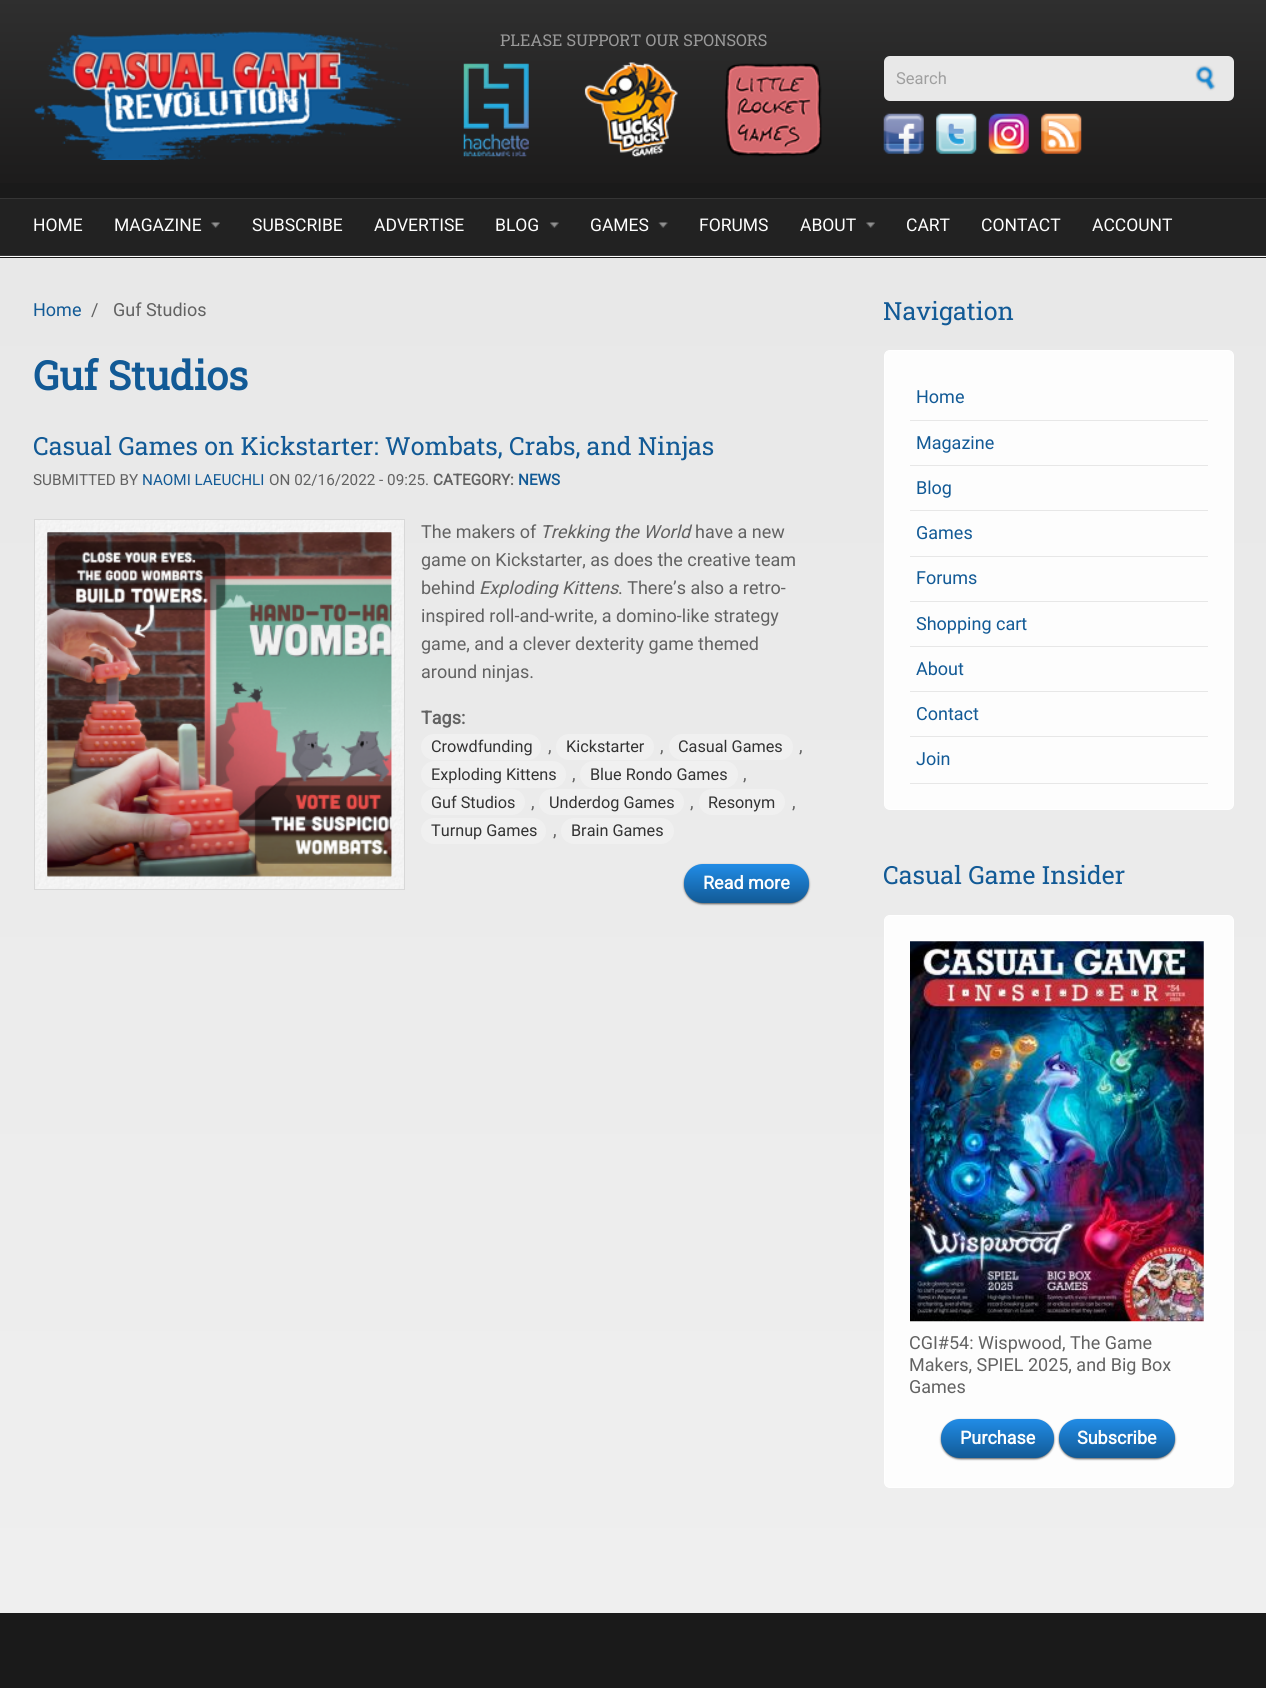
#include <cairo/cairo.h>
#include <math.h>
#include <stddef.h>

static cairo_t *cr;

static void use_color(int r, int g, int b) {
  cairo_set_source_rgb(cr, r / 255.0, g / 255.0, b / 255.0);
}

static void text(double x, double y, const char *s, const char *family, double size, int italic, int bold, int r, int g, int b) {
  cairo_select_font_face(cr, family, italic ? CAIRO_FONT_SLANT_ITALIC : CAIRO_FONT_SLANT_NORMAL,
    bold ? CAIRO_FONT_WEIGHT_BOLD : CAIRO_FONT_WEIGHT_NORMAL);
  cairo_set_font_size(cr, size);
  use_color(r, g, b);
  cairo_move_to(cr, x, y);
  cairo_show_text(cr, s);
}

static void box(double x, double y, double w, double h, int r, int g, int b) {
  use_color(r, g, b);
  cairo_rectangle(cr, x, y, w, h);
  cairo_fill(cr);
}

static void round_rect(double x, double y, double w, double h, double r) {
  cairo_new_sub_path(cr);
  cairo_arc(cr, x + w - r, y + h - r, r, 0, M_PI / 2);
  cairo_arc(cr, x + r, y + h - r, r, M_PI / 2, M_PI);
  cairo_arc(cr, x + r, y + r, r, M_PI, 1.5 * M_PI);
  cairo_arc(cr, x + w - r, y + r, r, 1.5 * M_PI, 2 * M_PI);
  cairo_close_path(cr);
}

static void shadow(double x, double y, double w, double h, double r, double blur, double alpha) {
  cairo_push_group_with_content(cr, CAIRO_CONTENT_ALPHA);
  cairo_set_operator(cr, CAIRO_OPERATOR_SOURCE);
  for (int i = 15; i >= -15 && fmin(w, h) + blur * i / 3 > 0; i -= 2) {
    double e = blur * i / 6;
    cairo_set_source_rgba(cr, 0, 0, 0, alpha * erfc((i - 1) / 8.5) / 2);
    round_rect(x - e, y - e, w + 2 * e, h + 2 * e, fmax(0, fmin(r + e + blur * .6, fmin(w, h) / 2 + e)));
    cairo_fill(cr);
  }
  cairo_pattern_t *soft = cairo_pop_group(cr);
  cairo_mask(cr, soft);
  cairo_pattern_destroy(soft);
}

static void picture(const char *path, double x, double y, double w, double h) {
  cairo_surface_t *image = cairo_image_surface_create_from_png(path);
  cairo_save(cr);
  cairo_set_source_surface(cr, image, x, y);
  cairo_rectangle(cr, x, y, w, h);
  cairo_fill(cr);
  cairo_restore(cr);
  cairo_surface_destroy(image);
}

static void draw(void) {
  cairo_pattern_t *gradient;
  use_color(26, 26, 26);
  cairo_paint(cr);
  gradient = cairo_pattern_create_linear(633, 0, 633, 198);
  cairo_pattern_add_color_stop_rgba(gradient, 0, 0.184, 0.184, 0.184, 1);
  cairo_pattern_add_color_stop_rgba(gradient, 1, 0.106, 0.102, 0.102, 1);
  cairo_set_source(cr, gradient);
  cairo_pattern_destroy(gradient);
  cairo_rectangle(cr, 0, 0, 1266, 183);
  cairo_fill(cr);
  picture("img_01.png", 34, 31, 375, 129);
  picture("img_02.png", 463, 63, 66, 94);
  picture("img_03.png", 584, 62, 94, 95);
  picture("img_04.png", 725, 63, 97, 94);
  use_color(232, 232, 232);
  round_rect(884, 56, 350, 45, 6);
  cairo_fill(cr);
  picture("img_05.png", 1195, 65, 21, 26);
  picture("img_06.png", 883, 113, 41, 41);
  picture("img_07.png", 936, 113, 41, 41);
  picture("img_08.png", 988, 113, 41, 41);
  picture("img_09.png", 1041, 113, 41, 41);
  box(0, 199, 1266, 56, 34, 34, 34);
  box(0, 198, 1266, 1, 53, 53, 53);
  box(0, 255, 1266, 1, 53, 53, 53);
  picture("img_10.png", 211, 222, 9, 6);
  picture("img_11.png", 550, 222, 9, 6);
  picture("img_12.png", 658, 222, 10, 6);
  picture("img_10.png", 866, 222, 9, 6);
  box(0, 256, 1266, 1, 252, 252, 252);
  gradient = cairo_pattern_create_linear(633, 257, 633, 1613);
  cairo_pattern_add_color_stop_rgba(gradient, 0, 0.91, 0.91, 0.91, 1);
  cairo_pattern_add_color_stop_rgba(gradient, 1, 0.937, 0.937, 0.937, 1);
  cairo_set_source(cr, gradient);
  cairo_pattern_destroy(gradient);
  cairo_rectangle(cr, 0, 258, 1266, 1355);
  cairo_fill(cr);
  picture("img_13.png", 35, 520, 369, 369);
  cairo_rectangle(cr, 34.5, 519.5, 370, 370);
  use_color(216, 216, 216);
  cairo_set_line_width(cr, 1);
  cairo_stroke(cr);
  picture("img_14.png", 47, 532, 345, 345);
  use_color(240, 240, 240);
  round_rect(421, 734, 120, 26, 13);
  cairo_fill(cr);
  round_rect(556, 734, 98, 26, 13);
  cairo_fill(cr);
  round_rect(669, 734, 124, 26, 13);
  cairo_fill(cr);
  round_rect(421, 761, 145, 27, 13.5);
  cairo_fill(cr);
  round_rect(580, 761, 158, 27, 13.5);
  cairo_fill(cr);
  round_rect(421, 789, 104, 26, 13);
  cairo_fill(cr);
  round_rect(539, 789, 145, 26, 13);
  cairo_fill(cr);
  round_rect(699, 789, 86, 26, 13);
  cairo_fill(cr);
  round_rect(421, 818, 125, 26, 13);
  cairo_fill(cr);
  round_rect(561, 818, 113, 26, 13);
  cairo_fill(cr);
  use_color(93, 93, 93);
  shadow(684, 865, 125, 39, 19, 1, 1);
  gradient = cairo_pattern_create_linear(746, 864, 746, 903);
  cairo_pattern_add_color_stop_rgba(gradient, 0, 0.129, 0.549, 0.902, 1);
  cairo_pattern_add_color_stop_rgba(gradient, 1, 0.071, 0.353, 0.588, 1);
  cairo_set_source(cr, gradient);
  cairo_pattern_destroy(gradient);
  round_rect(684, 864, 125, 39, 19);
  cairo_fill(cr);
  use_color(253, 253, 253);
  round_rect(884.5, 350.5, 349, 459, 5.5);
  cairo_fill_preserve(cr);
  use_color(255, 255, 255);
  cairo_stroke(cr);
  box(910, 420, 298, 1, 231, 231, 231);
  box(910, 465, 298, 1, 231, 231, 231);
  box(910, 510, 298, 1, 231, 231, 231);
  box(910, 556, 298, 1, 231, 231, 231);
  box(910, 601, 298, 1, 231, 231, 231);
  box(910, 646, 298, 1, 231, 231, 231);
  box(910, 691, 298, 1, 231, 231, 231);
  box(910, 736, 298, 1, 231, 231, 231);
  box(910, 783, 298, 1, 231, 231, 231);
  use_color(253, 253, 253);
  round_rect(884.5, 915.5, 349, 572, 5.5);
  cairo_fill_preserve(cr);
  use_color(255, 255, 255);
  cairo_stroke(cr);
  picture("img_15.png", 910, 941, 294, 381);
  use_color(93, 93, 93);
  shadow(941, 1420, 113, 39, 19, 1, 1);
  gradient = cairo_pattern_create_linear(998, 1419, 998, 1458);
  cairo_pattern_add_color_stop_rgba(gradient, 0, 0.129, 0.549, 0.902, 1);
  cairo_pattern_add_color_stop_rgba(gradient, 1, 0.071, 0.353, 0.588, 1);
  cairo_set_source(cr, gradient);
  cairo_pattern_destroy(gradient);
  round_rect(941, 1419, 113, 39, 19);
  cairo_fill(cr);
  use_color(93, 93, 93);
  shadow(1059, 1420, 116, 39, 19, 1, 1);
  gradient = cairo_pattern_create_linear(1117, 1419, 1117, 1458);
  cairo_pattern_add_color_stop_rgba(gradient, 0, 0.129, 0.549, 0.902, 1);
  cairo_pattern_add_color_stop_rgba(gradient, 1, 0.071, 0.353, 0.588, 1);
  cairo_set_source(cr, gradient);
  cairo_pattern_destroy(gradient);
  round_rect(1059, 1419, 116, 39, 19);
  cairo_fill(cr);
  text(500, 46, "PLEASE SUPPORT OUR SPONSORS", "Roboto Slab", 16.25, 0, 0, 153, 153, 153);
  text(896, 84, "Search", "Roboto", 16.5, 0, 0, 159, 159, 159);
  text(33, 231, "HOME", "Roboto", 17.5, 0, 0, 254, 254, 254);
  text(114, 231, "MAGAZINE", "Roboto", 17.5, 0, 0, 254, 254, 254);
  text(252, 231, "SUBSCRIBE", "Roboto", 17.5, 0, 0, 254, 254, 254);
  text(374, 231, "ADVERTISE", "Roboto", 17.5, 0, 0, 254, 254, 254);
  text(495, 231, "BLOG", "Roboto", 17.5, 0, 0, 254, 254, 254);
  text(590, 231, "GAMES", "Roboto", 17.5, 0, 0, 254, 254, 254);
  text(699, 231, "FORUMS", "Roboto", 17.5, 0, 0, 254, 254, 254);
  text(800, 231, "ABOUT", "Roboto", 17.5, 0, 0, 254, 254, 254);
  text(906, 231, "CART", "Roboto", 17.5, 0, 0, 254, 254, 254);
  text(981, 231, "CONTACT", "Roboto", 17.5, 0, 0, 254, 254, 254);
  text(1092, 231, "ACCOUNT", "Roboto", 17.5, 0, 0, 254, 254, 254);
  text(33, 316, "Home", "Roboto", 18, 0, 0, 18, 90, 150);
  text(91, 316, "/", "Roboto", 18, 0, 0, 98, 98, 98);
  text(113, 316, "Guf Studios", "Roboto", 18, 0, 0, 98, 98, 98);
  text(33, 390, "Guf Studios", "Roboto Slab", 40, 0, 1, 18, 90, 150);
  text(33, 455, "Casual Games on Kickstarter: Wombats, Crabs, and Ninjas", "Roboto Slab", 25, 0, 0, 18, 90, 150);
  text(33, 485, "SUBMITTED BY", "Roboto", 15.25, 0, 0, 98, 98, 98);
  text(142, 485, "NAOMI LAEUCHLI", "Roboto", 15.25, 0, 0, 18, 90, 150);
  text(269, 485, "ON 02/16/2022 - 09:25.", "Roboto", 15.25, 0, 0, 98, 98, 98);
  text(433, 485, "CATEGORY:", "Roboto", 15.25, 0, 1, 98, 98, 98);
  text(518, 485, "NEWS", "Roboto", 15.25, 0, 1, 18, 90, 150);
  text(421, 538, "The makers of", "Roboto", 18, 0, 0, 98, 98, 98);
  text(540, 538, "Trekking the World", "Roboto", 18, 1, 0, 98, 98, 98);
  text(695, 538, "have a new", "Roboto", 18, 0, 0, 98, 98, 98);
  text(421, 566, "game on Kickstarter, as does the creative team", "Roboto", 18, 0, 0, 98, 98, 98);
  text(421, 594, "behind", "Roboto", 18, 0, 0, 98, 98, 98);
  text(479, 594, "Exploding Kittens", "Roboto", 18, 1, 0, 98, 98, 98);
  text(618, 594, ". There’s also a retro-", "Roboto", 18, 0, 0, 98, 98, 98);
  text(421, 622, "inspired roll-and-write, a domino-like strategy", "Roboto", 18, 0, 0, 98, 98, 98);
  text(421, 650, "game, and a clever dexterity game themed", "Roboto", 18, 0, 0, 98, 98, 98);
  text(421, 678, "around ninjas.", "Roboto", 18, 0, 0, 98, 98, 98);
  text(421, 724, "Tags:", "Roboto", 18, 0, 1, 98, 98, 98);
  text(431, 752, "Crowdfunding", "Roboto", 16.25, 0, 0, 51, 51, 51);
  text(548, 752, ",", "Roboto", 18, 0, 0, 98, 98, 98);
  text(566, 752, "Kickstarter", "Roboto", 16.25, 0, 0, 51, 51, 51);
  text(660, 752, ",", "Roboto", 18, 0, 0, 98, 98, 98);
  text(678, 752, "Casual Games", "Roboto", 16.25, 0, 0, 51, 51, 51);
  text(799, 752, ",", "Roboto", 18, 0, 0, 98, 98, 98);
  text(431, 780, "Exploding Kittens", "Roboto", 16.25, 0, 0, 51, 51, 51);
  text(572, 780, ",", "Roboto", 18, 0, 0, 98, 98, 98);
  text(590, 780, "Blue Rondo Games", "Roboto", 16.25, 0, 0, 51, 51, 51);
  text(743, 780, ",", "Roboto", 18, 0, 0, 98, 98, 98);
  text(431, 808, "Guf Studios", "Roboto", 16.25, 0, 0, 51, 51, 51);
  text(531, 808, ",", "Roboto", 18, 0, 0, 98, 98, 98);
  text(549, 808, "Underdog Games", "Roboto", 16.25, 0, 0, 51, 51, 51);
  text(690, 808, ",", "Roboto", 18, 0, 0, 98, 98, 98);
  text(708, 808, "Resonym", "Roboto", 16.25, 0, 0, 51, 51, 51);
  text(792, 808, ",", "Roboto", 18, 0, 0, 98, 98, 98);
  text(431, 836, "Turnup Games", "Roboto", 16.25, 0, 0, 51, 51, 51);
  text(553, 836, ",", "Roboto", 18, 0, 0, 98, 98, 98);
  text(571, 836, "Brain Games", "Roboto", 16.25, 0, 0, 51, 51, 51);
  text(703, 889, "Read more", "Roboto", 18, 0, 1, 254, 254, 254);
  text(883, 320, "Navigation", "Roboto Slab", 25, 0, 0, 18, 90, 150);
  text(916, 403, "Home", "Roboto", 18, 0, 0, 18, 90, 150);
  text(916, 449, "Magazine", "Roboto", 18, 0, 0, 18, 90, 150);
  text(916, 494, "Blog", "Roboto", 18, 0, 0, 18, 90, 150);
  text(916, 539, "Games", "Roboto", 18, 0, 0, 18, 90, 150);
  text(916, 584, "Forums", "Roboto", 18, 0, 0, 18, 90, 150);
  text(916, 630, "Shopping cart", "Roboto", 18, 0, 0, 18, 90, 150);
  text(916, 675, "About", "Roboto", 18, 0, 0, 18, 90, 150);
  text(916, 720, "Contact", "Roboto", 18, 0, 0, 18, 90, 150);
  text(916, 765, "Join", "Roboto", 18, 0, 0, 18, 90, 150);
  text(883, 884, "Casual Game Insider", "Roboto Slab", 25, 0, 0, 18, 90, 150);
  text(909, 1349, "CGI#54: Wispwood, The Game", "Roboto", 18, 0, 0, 98, 98, 98);
  text(909, 1371, "Makers, SPIEL 2025, and Big Box", "Roboto", 18, 0, 0, 98, 98, 98);
  text(909, 1393, "Games", "Roboto", 18, 0, 0, 98, 98, 98);
  text(960, 1444, "Purchase", "Roboto", 18, 0, 1, 254, 254, 254);
  text(1077, 1444, "Subscribe", "Roboto", 18, 0, 1, 254, 254, 254);
}

int main(void) {
  cairo_surface_t *surface = cairo_image_surface_create(CAIRO_FORMAT_RGB24, 1266, 1688);
  cr = cairo_create(surface);
  cairo_font_options_t *options = cairo_font_options_create();
  cairo_font_options_set_hint_metrics(options, CAIRO_HINT_METRICS_OFF);
  cairo_font_options_set_hint_style(options, CAIRO_HINT_STYLE_NONE);
  cairo_set_font_options(cr, options);
  cairo_set_miter_limit(cr, 4);
  draw();
  cairo_surface_write_to_png(surface, "out.png");
  cairo_font_options_destroy(options);
  cairo_destroy(cr);
  cairo_surface_destroy(surface);
  return 0;
}
